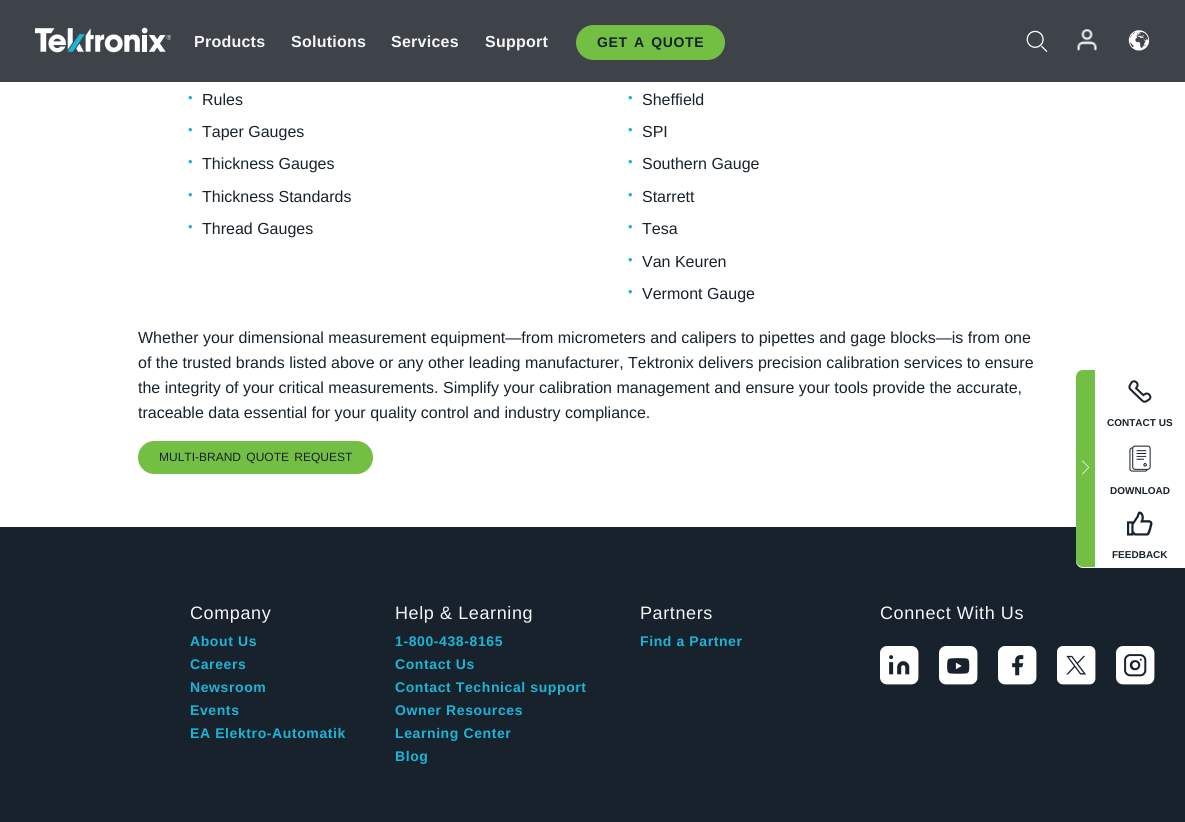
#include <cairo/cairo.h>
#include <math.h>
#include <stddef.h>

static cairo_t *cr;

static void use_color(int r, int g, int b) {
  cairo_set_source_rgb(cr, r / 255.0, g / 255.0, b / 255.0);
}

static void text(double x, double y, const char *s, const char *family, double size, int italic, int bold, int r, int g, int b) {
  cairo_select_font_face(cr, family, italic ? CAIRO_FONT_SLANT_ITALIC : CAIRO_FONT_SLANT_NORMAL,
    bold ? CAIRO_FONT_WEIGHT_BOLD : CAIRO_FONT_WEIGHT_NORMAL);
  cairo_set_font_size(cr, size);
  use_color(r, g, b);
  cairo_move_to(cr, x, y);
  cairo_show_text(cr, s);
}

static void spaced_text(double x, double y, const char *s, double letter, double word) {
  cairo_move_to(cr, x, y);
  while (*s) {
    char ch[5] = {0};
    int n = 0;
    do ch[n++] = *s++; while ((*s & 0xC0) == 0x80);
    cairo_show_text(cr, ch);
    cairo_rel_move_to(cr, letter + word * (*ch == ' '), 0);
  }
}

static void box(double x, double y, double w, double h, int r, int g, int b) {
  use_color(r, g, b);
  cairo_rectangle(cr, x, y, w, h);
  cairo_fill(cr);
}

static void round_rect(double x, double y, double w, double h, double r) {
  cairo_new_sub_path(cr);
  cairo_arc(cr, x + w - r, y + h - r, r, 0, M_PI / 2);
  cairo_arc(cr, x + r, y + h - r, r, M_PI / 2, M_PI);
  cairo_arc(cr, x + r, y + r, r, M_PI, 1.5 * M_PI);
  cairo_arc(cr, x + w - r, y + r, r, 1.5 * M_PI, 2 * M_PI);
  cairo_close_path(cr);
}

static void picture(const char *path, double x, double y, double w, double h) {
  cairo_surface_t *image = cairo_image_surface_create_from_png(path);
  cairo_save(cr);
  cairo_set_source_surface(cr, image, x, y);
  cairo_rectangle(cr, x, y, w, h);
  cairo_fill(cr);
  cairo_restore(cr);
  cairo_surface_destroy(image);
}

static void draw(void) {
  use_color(255, 255, 255);
  cairo_paint(cr);
  box(0, 0, 1185, 82, 62, 67, 74);
  picture("img_01.png", 35, 27, 136, 26);
  use_color(115, 191, 68);
  round_rect(576, 25, 149, 35, 17.5);
  cairo_fill(cr);
  picture("img_02.png", 1026, 30, 22, 22);
  picture("img_03.png", 1077, 29, 20, 22);
  picture("img_04.png", 1128, 30, 22, 21);
  round_rect(138, 441, 235, 33, 16.5);
  cairo_fill(cr);
  box(0, 527, 1185, 295, 23, 34, 44);
  use_color(255, 255, 255);
  cairo_new_path(cr);
  cairo_move_to(cr, 1083, 370);
  cairo_line_to(cr, 1185, 370);
  cairo_line_to(cr, 1185, 568);
  cairo_line_to(cr, 1083, 568);
  cairo_curve_to(cr, 1079, 568, 1076, 565, 1076, 561);
  cairo_line_to(cr, 1076, 377);
  cairo_curve_to(cr, 1076, 373, 1079, 370, 1083, 370);
  cairo_close_path(cr);
  cairo_fill(cr);
  use_color(115, 191, 68);
  cairo_new_path(cr);
  cairo_move_to(cr, 1083, 370);
  cairo_line_to(cr, 1095, 370);
  cairo_line_to(cr, 1095, 567);
  cairo_line_to(cr, 1083, 567);
  cairo_curve_to(cr, 1079, 567, 1076, 564, 1076, 560);
  cairo_line_to(cr, 1076, 377);
  cairo_curve_to(cr, 1076, 373, 1079, 370, 1083, 370);
  cairo_close_path(cr);
  cairo_fill(cr);
  picture("img_05.png", 1082, 460, 7, 15);
  picture("img_06.png", 1128, 380, 24, 23);
  picture("img_07.png", 1129, 445, 22, 27);
  picture("img_08.png", 1127, 511, 26, 25);
  picture("img_09.png", 880, 646, 39, 39);
  picture("img_10.png", 939, 646, 39, 39);
  picture("img_11.png", 998, 646, 39, 39);
  picture("img_12.png", 1057, 646, 39, 39);
  picture("img_13.png", 1116, 646, 39, 39);
  cairo_select_font_face(cr, "Liberation Sans", CAIRO_FONT_SLANT_NORMAL, CAIRO_FONT_WEIGHT_BOLD);
  cairo_set_font_size(cr, 16);
  use_color(245, 245, 245);
  spaced_text(194, 47, "Products", 0.25, 0);
  spaced_text(291, 47, "Solutions", 0.25, 0);
  spaced_text(391, 47, "Services", 0.25, 0);
  spaced_text(485, 47, "Support", 0.25, 0);
  cairo_set_font_size(cr, 14);
  use_color(23, 34, 44);
  spaced_text(597, 47, "GET A QUOTE", 0.6, 2);
  text(188, 102, "•", "Liberation Sans", 13, 0, 0, 28, 181, 216);
  text(202, 105, "Rules", "Liberation Sans", 16, 0, 0, 23, 34, 44);
  text(188, 134, "•", "Liberation Sans", 13, 0, 0, 28, 181, 216);
  text(202, 137, "Taper Gauges", "Liberation Sans", 16, 0, 0, 23, 34, 44);
  text(188, 166, "•", "Liberation Sans", 13, 0, 0, 28, 181, 216);
  text(202, 169, "Thickness Gauges", "Liberation Sans", 16, 0, 0, 23, 34, 44);
  text(188, 199, "•", "Liberation Sans", 13, 0, 0, 28, 181, 216);
  text(202, 202, "Thickness Standards", "Liberation Sans", 16, 0, 0, 23, 34, 44);
  text(188, 231, "•", "Liberation Sans", 13, 0, 0, 28, 181, 216);
  text(202, 234, "Thread Gauges", "Liberation Sans", 16, 0, 0, 23, 34, 44);
  text(628, 102, "•", "Liberation Sans", 13, 0, 0, 28, 181, 216);
  text(642, 105, "Sheffield", "Liberation Sans", 16, 0, 0, 23, 34, 44);
  text(628, 134, "•", "Liberation Sans", 13, 0, 0, 28, 181, 216);
  text(642, 137, "SPI", "Liberation Sans", 16, 0, 0, 23, 34, 44);
  text(628, 166, "•", "Liberation Sans", 13, 0, 0, 28, 181, 216);
  text(642, 169, "Southern Gauge", "Liberation Sans", 16, 0, 0, 23, 34, 44);
  text(628, 199, "•", "Liberation Sans", 13, 0, 0, 28, 181, 216);
  text(642, 202, "Starrett", "Liberation Sans", 16, 0, 0, 23, 34, 44);
  text(628, 231, "•", "Liberation Sans", 13, 0, 0, 28, 181, 216);
  text(642, 234, "Tesa", "Liberation Sans", 16, 0, 0, 23, 34, 44);
  text(628, 264, "•", "Liberation Sans", 13, 0, 0, 28, 181, 216);
  text(642, 267, "Van Keuren", "Liberation Sans", 16, 0, 0, 23, 34, 44);
  text(628, 296, "•", "Liberation Sans", 13, 0, 0, 28, 181, 216);
  text(642, 299, "Vermont Gauge", "Liberation Sans", 16, 0, 0, 23, 34, 44);
  text(138, 343, "Whether your dimensional measurement equipment—from micrometers and calipers to pipettes and gage blocks—is from one", "Liberation Sans", 16, 0, 0, 23, 34, 44);
  text(138, 368, "of the trusted brands listed above or any other leading manufacturer, Tektronix delivers precision calibration services to ensure", "Liberation Sans", 16, 0, 0, 23, 34, 44);
  text(138, 393, "the integrity of your critical measurements. Simplify your calibration management and ensure your tools provide the accurate,", "Liberation Sans", 16, 0, 0, 23, 34, 44);
  text(138, 418, "traceable data essential for your quality control and industry compliance.", "Liberation Sans", 16, 0, 0, 23, 34, 44);
  cairo_set_font_size(cr, 12);
  spaced_text(159, 461, "MULTI-BRAND QUOTE REQUEST", 0, 2);
  text(1107, 426, "CONTACT US", "Liberation Sans", 10, 0, 1, 23, 34, 44);
  text(1110, 494, "DOWNLOAD", "Liberation Sans", 10, 0, 1, 23, 34, 44);
  text(1112, 558, "FEEDBACK", "Liberation Sans", 10, 0, 1, 23, 34, 44);
  cairo_select_font_face(cr, "Liberation Sans", CAIRO_FONT_SLANT_NORMAL, CAIRO_FONT_WEIGHT_NORMAL);
  cairo_set_font_size(cr, 18);
  use_color(245, 245, 245);
  spaced_text(190, 619, "Company", 0.6, 0);
  cairo_select_font_face(cr, "Liberation Sans", CAIRO_FONT_SLANT_NORMAL, CAIRO_FONT_WEIGHT_BOLD);
  cairo_set_font_size(cr, 14);
  use_color(28, 181, 216);
  spaced_text(190, 646, "About Us", 0.6, 0);
  spaced_text(190, 669, "Careers", 0.6, 0);
  spaced_text(190, 692, "Newsroom", 0.6, 0);
  spaced_text(190, 715, "Events", 0.6, 0);
  spaced_text(190, 738, "EA Elektro-Automatik", 0.6, 0);
  cairo_select_font_face(cr, "Liberation Sans", CAIRO_FONT_SLANT_NORMAL, CAIRO_FONT_WEIGHT_NORMAL);
  cairo_set_font_size(cr, 18);
  use_color(245, 245, 245);
  spaced_text(395, 619, "Help & Learning", 0.6, 0);
  cairo_select_font_face(cr, "Liberation Sans", CAIRO_FONT_SLANT_NORMAL, CAIRO_FONT_WEIGHT_BOLD);
  cairo_set_font_size(cr, 14);
  use_color(28, 181, 216);
  spaced_text(395, 646, "1-800-438-8165", 0.6, 0);
  spaced_text(395, 669, "Contact Us", 0.6, 0);
  spaced_text(395, 692, "Contact Technical support", 0.6, 0);
  spaced_text(395, 715, "Owner Resources", 0.6, 0);
  spaced_text(395, 738, "Learning Center", 0.6, 0);
  spaced_text(395, 761, "Blog", 0.6, 0);
  cairo_select_font_face(cr, "Liberation Sans", CAIRO_FONT_SLANT_NORMAL, CAIRO_FONT_WEIGHT_NORMAL);
  cairo_set_font_size(cr, 18);
  use_color(245, 245, 245);
  spaced_text(640, 619, "Partners", 0.6, 0);
  cairo_select_font_face(cr, "Liberation Sans", CAIRO_FONT_SLANT_NORMAL, CAIRO_FONT_WEIGHT_BOLD);
  cairo_set_font_size(cr, 14);
  use_color(28, 181, 216);
  spaced_text(640, 646, "Find a Partner", 0.6, 0);
  cairo_select_font_face(cr, "Liberation Sans", CAIRO_FONT_SLANT_NORMAL, CAIRO_FONT_WEIGHT_NORMAL);
  cairo_set_font_size(cr, 18);
  use_color(245, 245, 245);
  spaced_text(880, 619, "Connect With Us", 0.6, 0);
}

int main(void) {
  cairo_surface_t *surface = cairo_image_surface_create(CAIRO_FORMAT_RGB24, 1185, 822);
  cr = cairo_create(surface);
  cairo_font_options_t *options = cairo_font_options_create();
  cairo_font_options_set_hint_metrics(options, CAIRO_HINT_METRICS_OFF);
  cairo_font_options_set_hint_style(options, CAIRO_HINT_STYLE_NONE);
  cairo_set_font_options(cr, options);
  cairo_set_miter_limit(cr, 4);
  draw();
  cairo_surface_write_to_png(surface, "out.png");
  cairo_font_options_destroy(options);
  cairo_destroy(cr);
  cairo_surface_destroy(surface);
  return 0;
}
